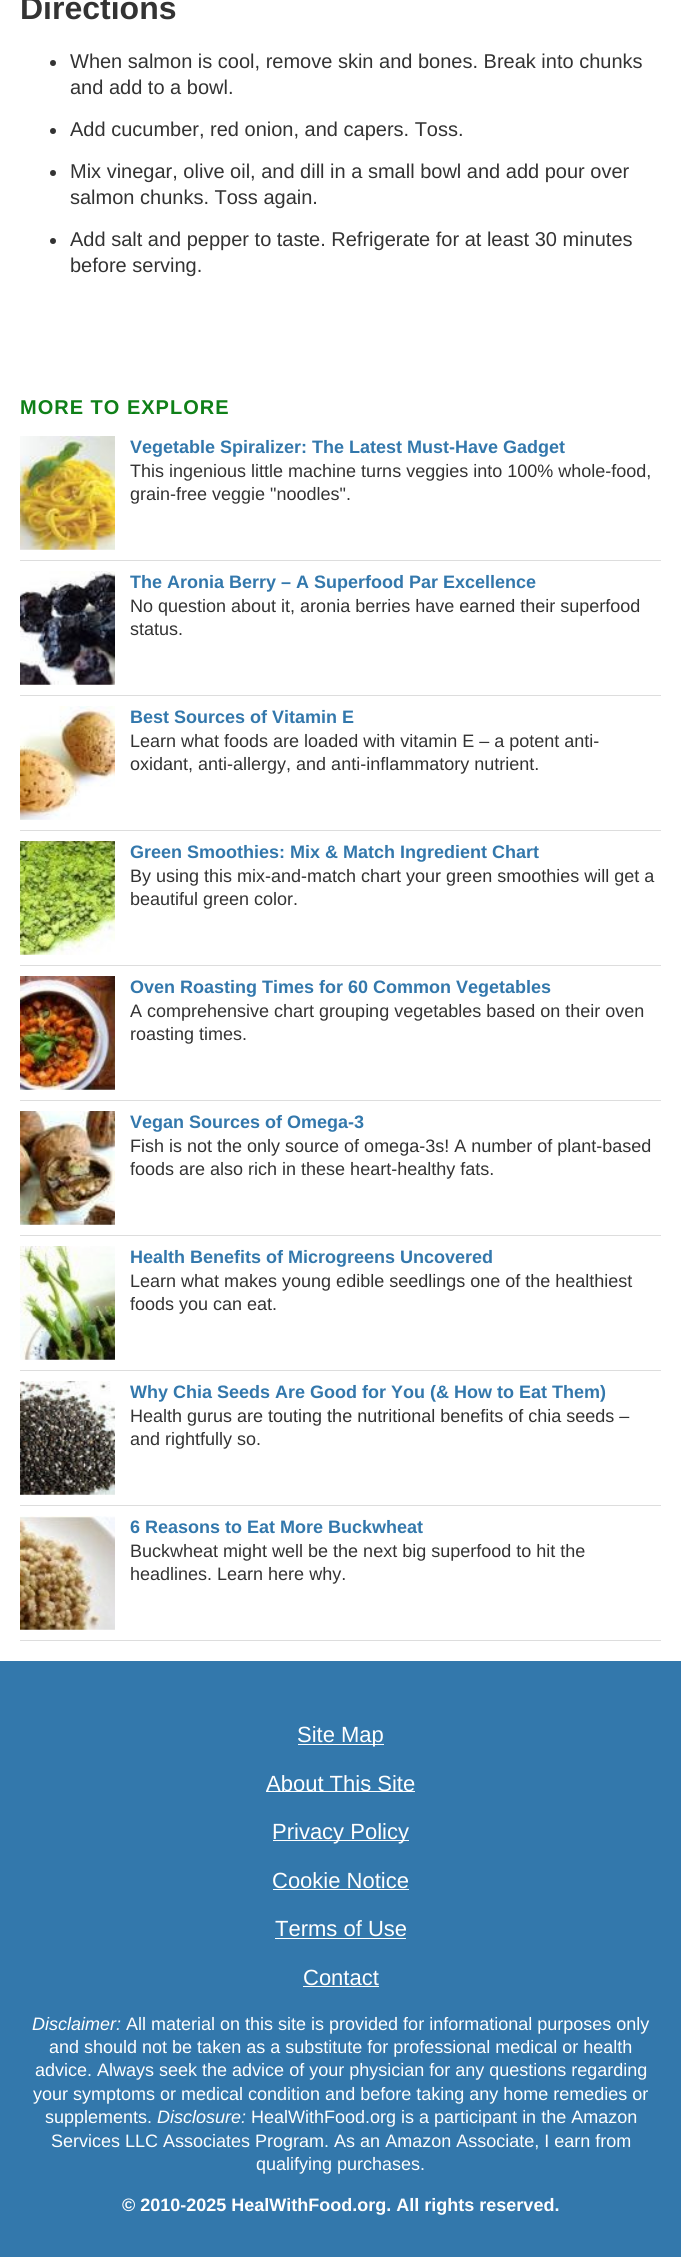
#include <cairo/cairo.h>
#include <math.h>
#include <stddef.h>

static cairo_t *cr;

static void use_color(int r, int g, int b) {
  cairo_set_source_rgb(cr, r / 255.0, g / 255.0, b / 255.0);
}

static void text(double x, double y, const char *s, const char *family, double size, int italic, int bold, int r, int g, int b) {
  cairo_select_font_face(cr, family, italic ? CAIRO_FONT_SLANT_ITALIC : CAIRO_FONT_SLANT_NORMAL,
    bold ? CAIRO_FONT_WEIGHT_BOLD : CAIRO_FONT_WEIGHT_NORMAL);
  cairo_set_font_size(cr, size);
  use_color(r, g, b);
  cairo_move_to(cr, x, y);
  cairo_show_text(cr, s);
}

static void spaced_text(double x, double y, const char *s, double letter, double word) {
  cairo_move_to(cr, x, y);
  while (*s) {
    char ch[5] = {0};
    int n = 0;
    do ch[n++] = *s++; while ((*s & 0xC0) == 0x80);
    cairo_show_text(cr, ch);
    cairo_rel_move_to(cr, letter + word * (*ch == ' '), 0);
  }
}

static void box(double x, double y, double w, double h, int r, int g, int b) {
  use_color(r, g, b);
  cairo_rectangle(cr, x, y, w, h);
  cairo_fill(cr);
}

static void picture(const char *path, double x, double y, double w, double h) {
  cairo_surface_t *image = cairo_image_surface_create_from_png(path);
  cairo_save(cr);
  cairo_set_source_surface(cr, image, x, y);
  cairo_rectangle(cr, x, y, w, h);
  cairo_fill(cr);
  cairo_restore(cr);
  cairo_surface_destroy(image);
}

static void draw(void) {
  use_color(255, 255, 255);
  cairo_paint(cr);
  use_color(51, 51, 51);
  cairo_arc(cr, 53, 63, 3, 0, 2 * M_PI);
  cairo_fill(cr);
  cairo_arc(cr, 53, 131, 3, 0, 2 * M_PI);
  cairo_fill(cr);
  cairo_arc(cr, 53, 173, 3, 0, 2 * M_PI);
  cairo_fill(cr);
  cairo_arc(cr, 53, 241, 3, 0, 2 * M_PI);
  cairo_fill(cr);
  box(20, 560, 641, 1, 221, 221, 221);
  picture("img_01.png", 20, 436, 95, 114);
  box(20, 695, 641, 1, 221, 221, 221);
  picture("img_02.png", 20, 571, 95, 114);
  box(20, 830, 641, 1, 221, 221, 221);
  picture("img_03.png", 20, 706, 95, 114);
  box(20, 965, 641, 1, 221, 221, 221);
  picture("img_04.png", 20, 841, 95, 114);
  box(20, 1100, 641, 1, 221, 221, 221);
  picture("img_05.png", 20, 976, 95, 114);
  box(20, 1235, 641, 1, 221, 221, 221);
  picture("img_06.png", 20, 1111, 95, 114);
  box(20, 1370, 641, 1, 221, 221, 221);
  picture("img_07.png", 20, 1246, 95, 114);
  box(20, 1505, 641, 1, 221, 221, 221);
  picture("img_08.png", 20, 1381, 95, 114);
  box(20, 1640, 641, 1, 221, 221, 221);
  picture("img_09.png", 20, 1516, 95, 114);
  box(0, 1661, 681, 596, 51, 120, 172);
  box(298, 1744, 86, 1, 255, 255, 255);
  box(266, 1791, 149, 1, 255, 255, 255);
  box(273, 1840, 136, 1, 255, 255, 255);
  box(273, 1889, 136, 1, 255, 255, 255);
  box(275, 1938, 131, 1, 255, 255, 255);
  box(303, 1986, 76, 1, 255, 255, 255);
  text(20, 19, "Directions", "Liberation Sans", 32, 0, 1, 51, 51, 51);
  text(70, 68, "When salmon is cool, remove skin and bones. Break into chunks", "Liberation Sans", 20, 0, 0, 51, 51, 51);
  text(70, 94, "and add to a bowl.", "Liberation Sans", 20, 0, 0, 51, 51, 51);
  text(70, 136, "Add cucumber, red onion, and capers. Toss.", "Liberation Sans", 20, 0, 0, 51, 51, 51);
  text(70, 178, "Mix vinegar, olive oil, and dill in a small bowl and add pour over", "Liberation Sans", 20, 0, 0, 51, 51, 51);
  text(70, 204, "salmon chunks. Toss again.", "Liberation Sans", 20, 0, 0, 51, 51, 51);
  text(70, 246, "Add salt and pepper to taste. Refrigerate for at least 30 minutes", "Liberation Sans", 20, 0, 0, 51, 51, 51);
  text(70, 272, "before serving.", "Liberation Sans", 20, 0, 0, 51, 51, 51);
  cairo_select_font_face(cr, "Liberation Sans", CAIRO_FONT_SLANT_NORMAL, CAIRO_FONT_WEIGHT_BOLD);
  use_color(15, 128, 24);
  spaced_text(20, 414, "MORE TO EXPLORE", 1, 0);
  text(130, 453, "Vegetable Spiralizer: The Latest Must-Have Gadget", "Liberation Sans", 18, 0, 1, 51, 120, 172);
  text(130, 477, "This ingenious little machine turns veggies into 100% whole-food,", "Liberation Sans", 18, 0, 0, 51, 51, 51);
  text(130, 500, "grain-free veggie \"noodles\".", "Liberation Sans", 18, 0, 0, 51, 51, 51);
  text(130, 588, "The Aronia Berry – A Superfood Par Excellence", "Liberation Sans", 18, 0, 1, 51, 120, 172);
  text(130, 612, "No question about it, aronia berries have earned their superfood", "Liberation Sans", 18, 0, 0, 51, 51, 51);
  text(130, 635, "status.", "Liberation Sans", 18, 0, 0, 51, 51, 51);
  text(130, 723, "Best Sources of Vitamin E", "Liberation Sans", 18, 0, 1, 51, 120, 172);
  text(130, 747, "Learn what foods are loaded with vitamin E – a potent anti-", "Liberation Sans", 18, 0, 0, 51, 51, 51);
  text(130, 770, "oxidant, anti-allergy, and anti-inflammatory nutrient.", "Liberation Sans", 18, 0, 0, 51, 51, 51);
  text(130, 858, "Green Smoothies: Mix & Match Ingredient Chart", "Liberation Sans", 18, 0, 1, 51, 120, 172);
  text(130, 882, "By using this mix-and-match chart your green smoothies will get a", "Liberation Sans", 18, 0, 0, 51, 51, 51);
  text(130, 905, "beautiful green color.", "Liberation Sans", 18, 0, 0, 51, 51, 51);
  text(130, 993, "Oven Roasting Times for 60 Common Vegetables", "Liberation Sans", 18, 0, 1, 51, 120, 172);
  text(130, 1017, "A comprehensive chart grouping vegetables based on their oven", "Liberation Sans", 18, 0, 0, 51, 51, 51);
  text(130, 1040, "roasting times.", "Liberation Sans", 18, 0, 0, 51, 51, 51);
  text(130, 1128, "Vegan Sources of Omega-3", "Liberation Sans", 18, 0, 1, 51, 120, 172);
  text(130, 1152, "Fish is not the only source of omega-3s! A number of plant-based", "Liberation Sans", 18, 0, 0, 51, 51, 51);
  text(130, 1175, "foods are also rich in these heart-healthy fats.", "Liberation Sans", 18, 0, 0, 51, 51, 51);
  text(130, 1263, "Health Benefits of Microgreens Uncovered", "Liberation Sans", 18, 0, 1, 51, 120, 172);
  text(130, 1287, "Learn what makes young edible seedlings one of the healthiest", "Liberation Sans", 18, 0, 0, 51, 51, 51);
  text(130, 1310, "foods you can eat.", "Liberation Sans", 18, 0, 0, 51, 51, 51);
  text(130, 1398, "Why Chia Seeds Are Good for You (& How to Eat Them)", "Liberation Sans", 18, 0, 1, 51, 120, 172);
  text(130, 1422, "Health gurus are touting the nutritional benefits of chia seeds –", "Liberation Sans", 18, 0, 0, 51, 51, 51);
  text(130, 1445, "and rightfully so.", "Liberation Sans", 18, 0, 0, 51, 51, 51);
  text(130, 1533, "6 Reasons to Eat More Buckwheat", "Liberation Sans", 18, 0, 1, 51, 120, 172);
  text(130, 1557, "Buckwheat might well be the next big superfood to hit the", "Liberation Sans", 18, 0, 0, 51, 51, 51);
  text(130, 1580, "headlines. Learn here why.", "Liberation Sans", 18, 0, 0, 51, 51, 51);
  text(297, 1742, "Site Map", "Liberation Sans", 22, 0, 0, 255, 255, 255);
  text(266, 1791, "About This Site", "Liberation Sans", 22, 0, 0, 255, 255, 255);
  text(272, 1839, "Privacy Policy", "Liberation Sans", 22, 0, 0, 255, 255, 255);
  text(272, 1888, "Cookie Notice", "Liberation Sans", 22, 0, 0, 255, 255, 255);
  text(275, 1936, "Terms of Use", "Liberation Sans", 22, 0, 0, 255, 255, 255);
  text(303, 1985, "Contact", "Liberation Sans", 22, 0, 0, 255, 255, 255);
  text(32, 2030, "Disclaimer:", "Liberation Sans", 18, 1, 0, 255, 255, 255);
  text(126, 2030, "All material on this site is provided for informational purposes only", "Liberation Sans", 18, 0, 0, 255, 255, 255);
  text(49, 2053, "and should not be taken as a substitute for professional medical or health", "Liberation Sans", 18, 0, 0, 255, 255, 255);
  text(35, 2076, "advice. Always seek the advice of your physician for any questions regarding", "Liberation Sans", 18, 0, 0, 255, 255, 255);
  text(33, 2100, "your symptoms or medical condition and before taking any home remedies or", "Liberation Sans", 18, 0, 0, 255, 255, 255);
  text(45, 2123, "supplements.", "Liberation Sans", 18, 0, 0, 255, 255, 255);
  text(157, 2123, "Disclosure:", "Liberation Sans", 18, 1, 0, 255, 255, 255);
  text(251, 2123, "HealWithFood.org is a participant in the Amazon", "Liberation Sans", 18, 0, 0, 255, 255, 255);
  text(51, 2147, "Services LLC Associates Program. As an Amazon Associate, I earn from", "Liberation Sans", 18, 0, 0, 255, 255, 255);
  text(256, 2170, "qualifying purchases.", "Liberation Sans", 18, 0, 0, 255, 255, 255);
  text(122, 2211, "© 2010-2025 HealWithFood.org. All rights reserved.", "Liberation Sans", 18, 0, 1, 255, 255, 255);
}

int main(void) {
  cairo_surface_t *surface = cairo_image_surface_create(CAIRO_FORMAT_RGB24, 681, 2257);
  cr = cairo_create(surface);
  cairo_font_options_t *options = cairo_font_options_create();
  cairo_font_options_set_hint_metrics(options, CAIRO_HINT_METRICS_OFF);
  cairo_font_options_set_hint_style(options, CAIRO_HINT_STYLE_NONE);
  cairo_set_font_options(cr, options);
  cairo_set_miter_limit(cr, 4);
  draw();
  cairo_surface_write_to_png(surface, "out.png");
  cairo_font_options_destroy(options);
  cairo_destroy(cr);
  cairo_surface_destroy(surface);
  return 0;
}
